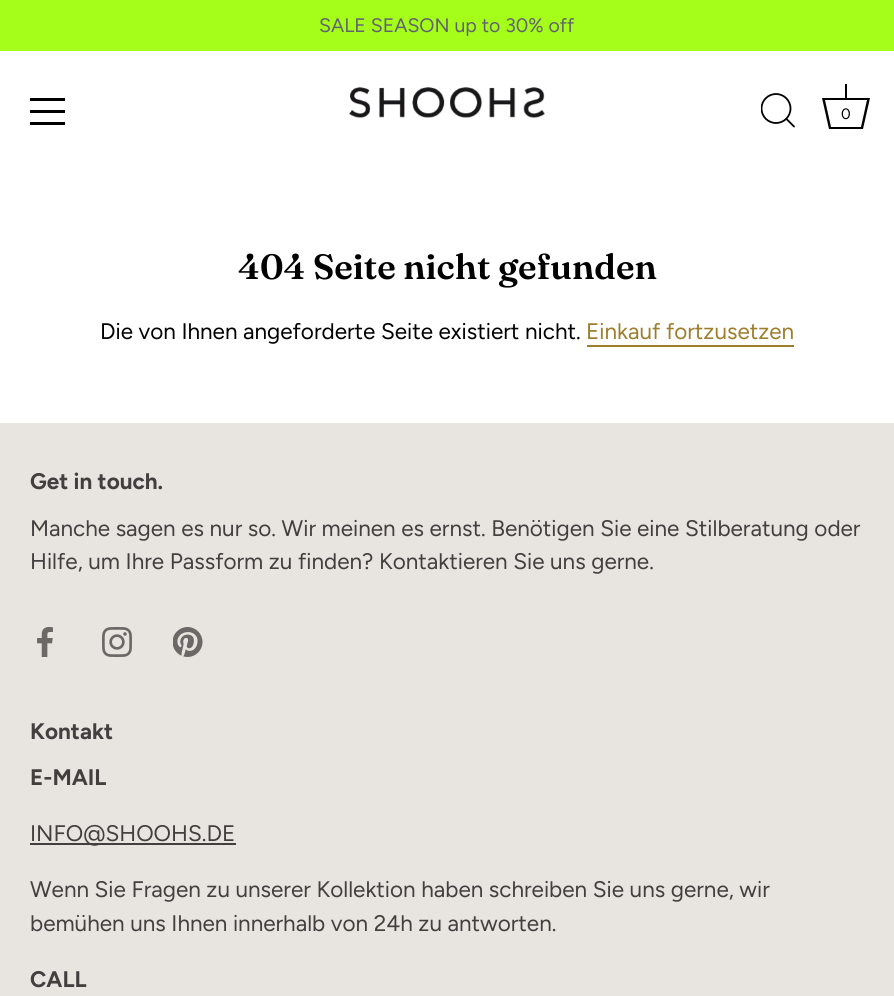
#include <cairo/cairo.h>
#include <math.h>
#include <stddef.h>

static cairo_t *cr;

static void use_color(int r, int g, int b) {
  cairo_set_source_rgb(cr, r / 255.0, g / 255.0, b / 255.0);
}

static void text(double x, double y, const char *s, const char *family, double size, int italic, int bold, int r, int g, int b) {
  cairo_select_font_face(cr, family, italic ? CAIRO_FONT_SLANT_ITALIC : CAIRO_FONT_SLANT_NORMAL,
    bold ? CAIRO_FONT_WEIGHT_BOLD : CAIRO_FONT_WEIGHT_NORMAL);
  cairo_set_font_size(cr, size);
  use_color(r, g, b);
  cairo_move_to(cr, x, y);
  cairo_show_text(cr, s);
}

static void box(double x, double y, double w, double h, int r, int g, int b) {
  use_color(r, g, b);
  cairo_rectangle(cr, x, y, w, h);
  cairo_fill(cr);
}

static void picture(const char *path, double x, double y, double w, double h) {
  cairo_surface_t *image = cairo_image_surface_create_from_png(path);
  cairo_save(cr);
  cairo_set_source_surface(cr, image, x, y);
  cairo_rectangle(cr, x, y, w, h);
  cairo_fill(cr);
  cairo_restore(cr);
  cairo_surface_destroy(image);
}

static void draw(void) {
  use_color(255, 255, 255);
  cairo_paint(cr);
  box(0, 0, 894, 51, 165, 253, 26);
  box(30, 98, 35, 3, 0, 0, 0);
  box(30, 110, 35, 3, 0, 0, 0);
  box(30, 122, 35, 3, 0, 0, 0);
  picture("img_01.png", 349, 87, 196, 31);
  cairo_save(cr);
  cairo_rectangle(cr, 761, 93, 36, 36);
  cairo_clip(cr);
  cairo_arc(cr, 776, 108.5, 14.5, 0, 2 * M_PI);
  cairo_set_line_width(cr, 1.8);
  cairo_stroke(cr);
  cairo_restore(cr);
  cairo_new_path(cr);
  cairo_move_to(cr, 794, 126.5);
  cairo_line_to(cr, 786.5, 119);
  cairo_set_line_width(cr, 1.8);
  cairo_set_line_cap(cr, CAIRO_LINE_CAP_ROUND);
  cairo_set_line_join(cr, CAIRO_LINE_JOIN_ROUND);
  cairo_stroke(cr);
  box(845, 84, 2, 14, 0, 0, 0);
  cairo_new_path(cr);
  cairo_move_to(cr, 867, 100);
  cairo_line_to(cr, 861, 127);
  cairo_line_to(cr, 831, 127);
  cairo_line_to(cr, 825, 100);
  cairo_line_to(cr, 867, 100);
  cairo_move_to(cr, 870, 98);
  cairo_line_to(cr, 822, 98);
  cairo_line_to(cr, 829, 129);
  cairo_line_to(cr, 863, 129);
  cairo_close_path(cr);
  cairo_fill(cr);
  box(587, 345, 207, 2, 158, 125, 43);
  box(0, 423, 894, 573, 232, 228, 223);
  picture("img_02.png", 37, 627, 16, 30);
  picture("img_03.png", 102, 627, 30, 30);
  picture("img_04.png", 173, 627, 30, 30);
  box(30, 843, 206, 2, 66, 63, 63);
  text(319, 32, "SALE SEASON up to 30% off", "Figtree", 19.5, 0, 0, 97, 97, 112);
  text(841, 119, "0", "Figtree", 15, 0, 0, 0, 0, 0);
  text(238, 279, "404 Seite nicht gefunden", "Fraunces SemiBold", 35.1, 0, 0, 0, 0, 0);
  text(100, 339, "Die von Ihnen angeforderte Seite existiert nicht.", "Figtree", 22.5, 0, 0, 0, 0, 0);
  text(586, 339, "Einkauf fortzusetzen", "Figtree", 22.5, 0, 0, 158, 125, 43);
  text(30, 489, "Get in touch.", "Figtree", 22.5, 0, 1, 66, 63, 63);
  text(30, 536, "Manche sagen es nur so. Wir meinen es ernst. Benötigen Sie eine Stilberatung oder", "Figtree", 22.5, 0, 0, 66, 63, 63);
  text(30, 569, "Hilfe, um Ihre Passform zu finden? Kontaktieren Sie uns gerne.", "Figtree", 22.5, 0, 0, 66, 63, 63);
  text(30, 739, "Kontakt", "Figtree", 22.5, 0, 1, 66, 63, 63);
  text(30, 785, "E-MAIL", "Figtree", 22.5, 0, 1, 66, 63, 63);
  text(30, 841, "INFO@SHOOHS.DE", "Figtree", 22.5, 0, 0, 66, 63, 63);
  text(30, 897, "Wenn Sie Fragen zu unserer Kollektion haben schreiben Sie uns gerne, wir", "Figtree", 22.5, 0, 0, 66, 63, 63);
  text(30, 931, "bemühen uns Ihnen innerhalb von 24h zu antworten.", "Figtree", 22.5, 0, 0, 66, 63, 63);
  text(30, 987, "CALL", "Figtree", 22.5, 0, 1, 66, 63, 63);
}

int main(void) {
  cairo_surface_t *surface = cairo_image_surface_create(CAIRO_FORMAT_RGB24, 894, 996);
  cr = cairo_create(surface);
  cairo_font_options_t *options = cairo_font_options_create();
  cairo_font_options_set_hint_metrics(options, CAIRO_HINT_METRICS_OFF);
  cairo_font_options_set_hint_style(options, CAIRO_HINT_STYLE_NONE);
  cairo_set_font_options(cr, options);
  cairo_set_miter_limit(cr, 4);
  draw();
  cairo_surface_write_to_png(surface, "out.png");
  cairo_font_options_destroy(options);
  cairo_destroy(cr);
  cairo_surface_destroy(surface);
  return 0;
}
